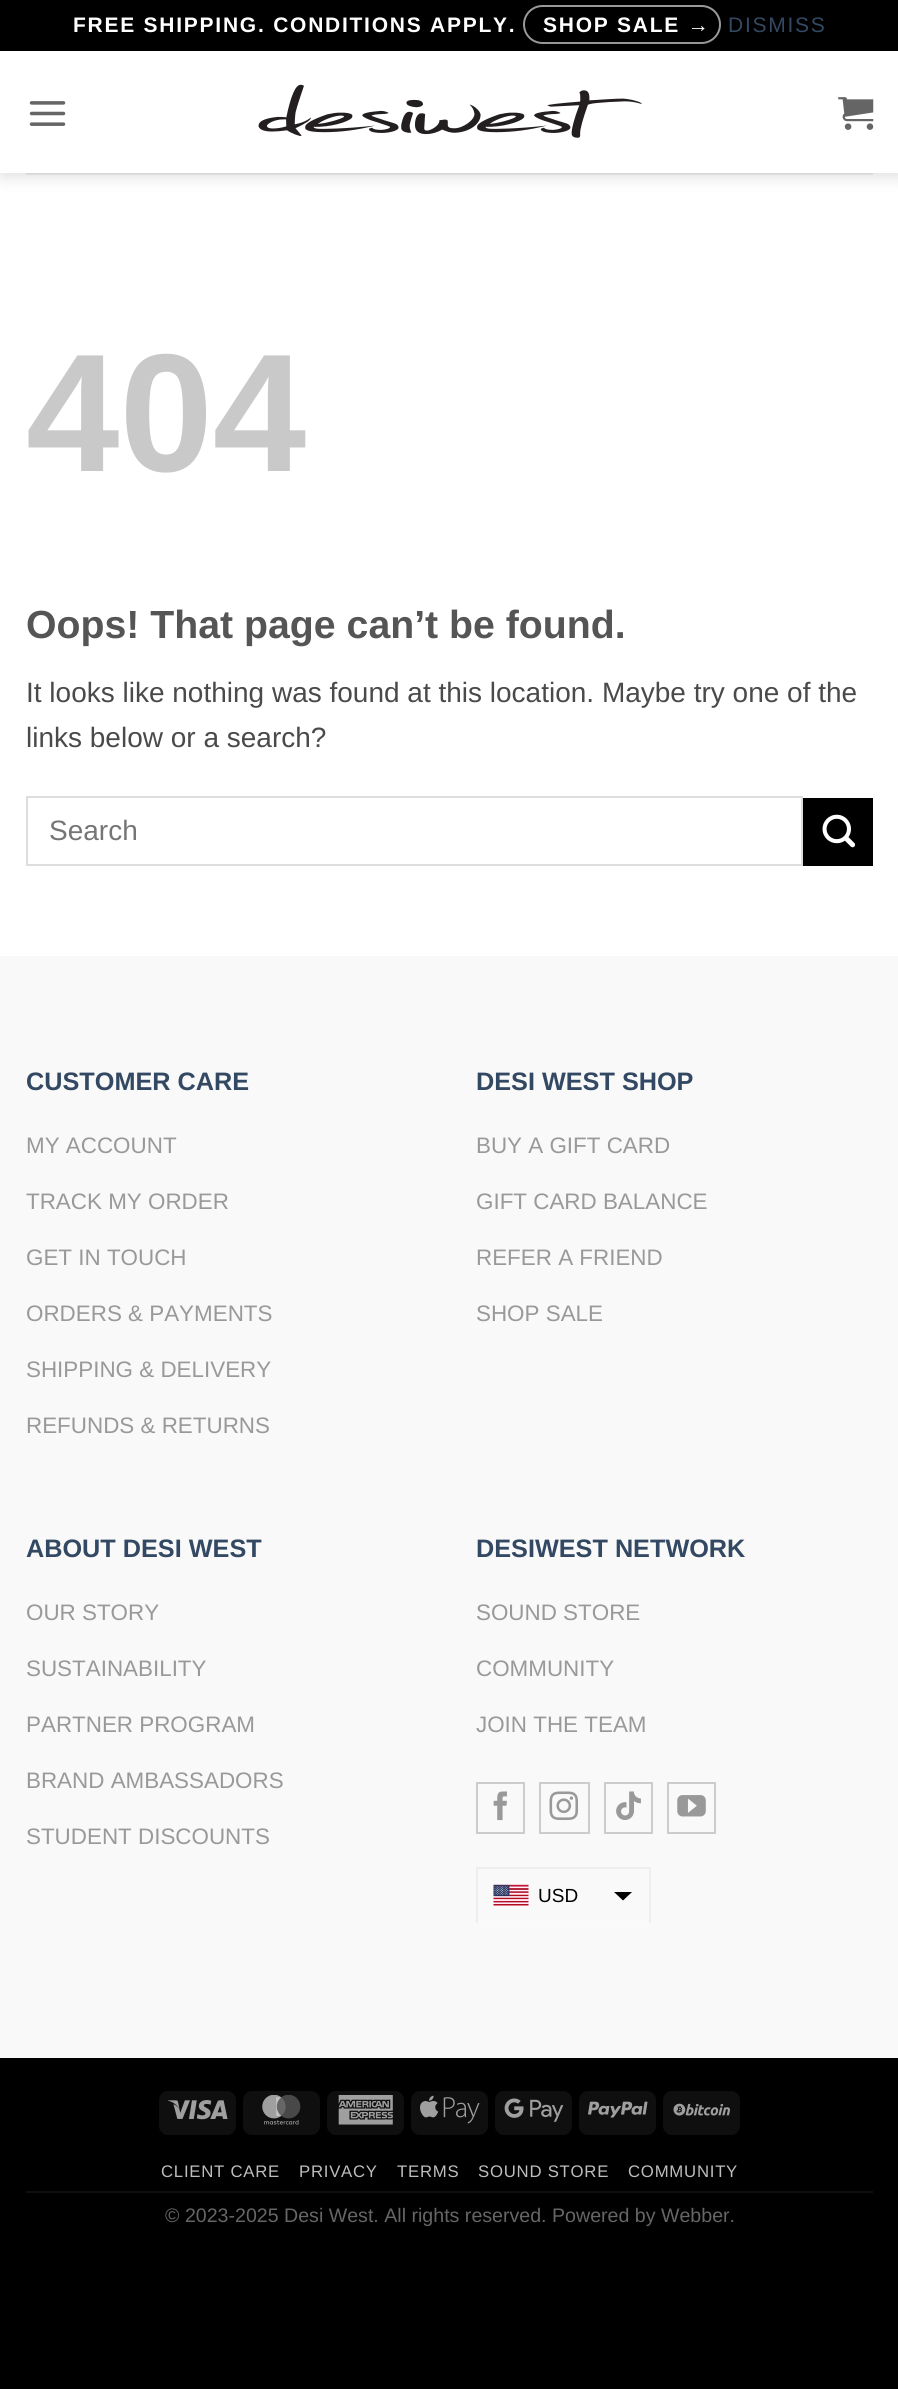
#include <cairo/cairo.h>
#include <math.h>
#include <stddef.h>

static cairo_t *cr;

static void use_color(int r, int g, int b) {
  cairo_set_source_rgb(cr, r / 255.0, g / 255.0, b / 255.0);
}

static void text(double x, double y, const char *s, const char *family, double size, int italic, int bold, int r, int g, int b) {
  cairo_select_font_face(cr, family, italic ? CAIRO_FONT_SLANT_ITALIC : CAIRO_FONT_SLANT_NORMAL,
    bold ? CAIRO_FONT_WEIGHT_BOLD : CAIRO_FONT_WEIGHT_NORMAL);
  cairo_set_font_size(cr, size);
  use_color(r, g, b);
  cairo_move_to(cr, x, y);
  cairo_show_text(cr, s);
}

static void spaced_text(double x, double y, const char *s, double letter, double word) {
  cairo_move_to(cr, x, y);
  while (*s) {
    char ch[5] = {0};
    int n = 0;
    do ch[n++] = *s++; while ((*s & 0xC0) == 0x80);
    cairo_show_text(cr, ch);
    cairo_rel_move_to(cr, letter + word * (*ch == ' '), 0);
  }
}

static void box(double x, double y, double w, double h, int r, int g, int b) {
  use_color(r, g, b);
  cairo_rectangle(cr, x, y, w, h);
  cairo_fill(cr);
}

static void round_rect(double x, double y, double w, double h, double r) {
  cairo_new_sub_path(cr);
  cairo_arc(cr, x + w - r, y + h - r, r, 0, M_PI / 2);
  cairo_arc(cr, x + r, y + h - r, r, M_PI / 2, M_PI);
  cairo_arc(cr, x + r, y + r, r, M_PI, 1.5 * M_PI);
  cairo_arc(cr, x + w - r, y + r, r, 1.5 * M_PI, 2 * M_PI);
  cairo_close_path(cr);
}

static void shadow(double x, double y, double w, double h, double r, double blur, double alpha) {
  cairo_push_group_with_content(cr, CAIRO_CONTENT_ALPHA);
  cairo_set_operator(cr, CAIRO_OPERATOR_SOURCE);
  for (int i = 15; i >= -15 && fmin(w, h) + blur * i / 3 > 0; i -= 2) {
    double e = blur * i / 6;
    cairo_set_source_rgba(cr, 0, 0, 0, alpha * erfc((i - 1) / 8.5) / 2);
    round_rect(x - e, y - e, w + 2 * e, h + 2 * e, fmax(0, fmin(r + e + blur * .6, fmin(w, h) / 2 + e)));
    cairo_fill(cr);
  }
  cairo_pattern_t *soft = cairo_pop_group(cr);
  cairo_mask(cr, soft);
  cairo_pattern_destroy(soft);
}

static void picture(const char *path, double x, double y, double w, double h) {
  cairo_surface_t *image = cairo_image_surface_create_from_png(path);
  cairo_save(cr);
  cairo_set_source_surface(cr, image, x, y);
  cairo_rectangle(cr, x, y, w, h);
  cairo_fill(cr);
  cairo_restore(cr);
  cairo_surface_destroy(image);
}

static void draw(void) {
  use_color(0, 0, 0);
  cairo_paint(cr);
  round_rect(524, 6, 196, 37, 18.5);
  use_color(153, 153, 153);
  cairo_stroke(cr);
  box(0, 51, 898, 905, 255, 255, 255);
  cairo_save(cr);
  cairo_set_fill_rule(cr, CAIRO_FILL_RULE_EVEN_ODD);
  cairo_new_path(cr);
  cairo_move_to(cr, 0, 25);
  cairo_line_to(cr, 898, 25);
  cairo_line_to(cr, 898, 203);
  cairo_line_to(cr, 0, 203);
  cairo_close_path(cr);
  cairo_move_to(cr, 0, 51);
  cairo_line_to(cr, 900, 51);
  cairo_line_to(cr, 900, 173);
  cairo_line_to(cr, 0, 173);
  cairo_close_path(cr);
  cairo_clip(cr);
  use_color(0, 0, 0);
  shadow(2, 53, 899, 122, 0, 9, 0.15);
  cairo_restore(cr);
  picture("img_01.png", 29, 101, 37, 25);
  picture("img_02.png", 258, 84, 384, 54);
  picture("img_03.png", 838, 97, 36, 33);
  cairo_set_source_rgba(cr, 0.29, 0.29, 0.29, 0.1);
  cairo_rectangle(cr, 26, 173, 847, 2);
  cairo_fill(cr);
  cairo_rectangle(cr, 27, 797, 775, 68);
  use_color(221, 221, 221);
  cairo_stroke(cr);
  box(803, 798, 70, 68, 0, 0, 0);
  picture("img_04.png", 822, 814, 34, 34);
  box(0, 956, 898, 1102, 249, 249, 249);
  cairo_rectangle(cr, 477, 1783, 47, 50);
  use_color(204, 204, 204);
  cairo_stroke(cr);
  picture("img_05.png", 493, 1791, 14, 30);
  cairo_rectangle(cr, 540, 1783, 49, 50);
  cairo_stroke(cr);
  picture("img_06.png", 549, 1791, 29, 30);
  cairo_rectangle(cr, 605, 1783, 47, 50);
  cairo_stroke(cr);
  picture("img_07.png", 616, 1791, 25, 29);
  cairo_rectangle(cr, 668, 1783, 47, 50);
  cairo_stroke(cr);
  picture("img_08.png", 677, 1795, 29, 22);
  cairo_rectangle(cr, 477, 1868, 173, 54);
  use_color(238, 238, 238);
  cairo_stroke(cr);
  box(478, 1921, 171, 2, 250, 250, 250);
  picture("img_09.png", 493, 1884, 36, 22);
  use_color(0, 0, 0);
  cairo_new_path(cr);
  cairo_move_to(cr, 614, 1892);
  cairo_line_to(cr, 632, 1892);
  cairo_line_to(cr, 623, 1900.5);
  cairo_close_path(cr);
  cairo_fill(cr);
  use_color(15, 15, 15);
  round_rect(159, 2091, 77, 44, 9);
  cairo_fill(cr);
  picture("img_10.png", 168, 2100, 60, 20);
  round_rect(243, 2091, 77, 44, 9);
  cairo_fill(cr);
  picture("img_11.png", 262, 2095, 39, 30);
  round_rect(327, 2091, 77, 44, 9);
  cairo_fill(cr);
  picture("img_12.png", 338, 2095, 55, 30);
  round_rect(411, 2091, 77, 44, 9);
  cairo_fill(cr);
  picture("img_13.png", 420, 2095, 60, 29);
  round_rect(495, 2091, 77, 44, 9);
  cairo_fill(cr);
  picture("img_14.png", 504, 2098, 60, 24);
  round_rect(579, 2091, 77, 44, 9);
  cairo_fill(cr);
  picture("img_15.png", 588, 2101, 60, 17);
  round_rect(663, 2091, 77, 44, 9);
  cairo_fill(cr);
  picture("img_16.png", 673, 2103, 57, 13);
  box(26, 2191, 847, 2, 16, 16, 16);
  cairo_select_font_face(cr, "Liberation Sans", CAIRO_FONT_SLANT_NORMAL, CAIRO_FONT_WEIGHT_BOLD);
  cairo_set_font_size(cr, 21);
  use_color(255, 255, 255);
  spaced_text(73, 32, "FREE SHIPPING. CONDITIONS APPLY.", 1.75, 0);
  spaced_text(543, 32, "SHOP SALE →", 1.75, 0);
  cairo_select_font_face(cr, "Liberation Sans", CAIRO_FONT_SLANT_NORMAL, CAIRO_FONT_WEIGHT_NORMAL);
  use_color(51, 72, 98);
  spaced_text(728, 32, "DISMISS", 1.75, 0);
  text(26, 471, "404", "Liberation Sans", 168, 0, 1, 201, 201, 201);
  text(26, 638, "Oops! That page can’t be found.", "Liberation Sans", 39.25, 0, 1, 85, 85, 85);
  text(26, 702, "It looks like nothing was found at this location. Maybe try one of the", "Liberation Sans", 28, 0, 0, 74, 74, 74);
  text(26, 747, "links below or a search?", "Liberation Sans", 28, 0, 0, 74, 74, 74);
  text(49, 840, "Search", "Liberation Sans", 28, 0, 0, 117, 117, 117);
  text(26, 1090, "CUSTOMER CARE", "Liberation Sans", 25.25, 0, 1, 51, 72, 98);
  text(26, 1153, "MY ACCOUNT", "Liberation Sans", 22.4, 0, 0, 153, 153, 153);
  text(26, 1209, "TRACK MY ORDER", "Liberation Sans", 22.4, 0, 0, 153, 153, 153);
  text(26, 1265, "GET IN TOUCH", "Liberation Sans", 22.4, 0, 0, 153, 153, 153);
  text(26, 1321, "ORDERS & PAYMENTS", "Liberation Sans", 22.4, 0, 0, 153, 153, 153);
  text(26, 1377, "SHIPPING & DELIVERY", "Liberation Sans", 22.4, 0, 0, 153, 153, 153);
  text(26, 1433, "REFUNDS & RETURNS", "Liberation Sans", 22.4, 0, 0, 153, 153, 153);
  text(476, 1090, "DESI WEST SHOP", "Liberation Sans", 25.25, 0, 1, 51, 72, 98);
  text(476, 1153, "BUY A GIFT CARD", "Liberation Sans", 22.4, 0, 0, 153, 153, 153);
  text(476, 1209, "GIFT CARD BALANCE", "Liberation Sans", 22.4, 0, 0, 153, 153, 153);
  text(476, 1265, "REFER A FRIEND", "Liberation Sans", 22.4, 0, 0, 153, 153, 153);
  text(476, 1321, "SHOP SALE", "Liberation Sans", 22.4, 0, 0, 153, 153, 153);
  text(26, 1557, "ABOUT DESI WEST", "Liberation Sans", 25.25, 0, 1, 51, 72, 98);
  text(26, 1620, "OUR STORY", "Liberation Sans", 22.4, 0, 0, 153, 153, 153);
  text(26, 1676, "SUSTAINABILITY", "Liberation Sans", 22.4, 0, 0, 153, 153, 153);
  text(26, 1732, "PARTNER PROGRAM", "Liberation Sans", 22.4, 0, 0, 153, 153, 153);
  text(26, 1788, "BRAND AMBASSADORS", "Liberation Sans", 22.4, 0, 0, 153, 153, 153);
  text(26, 1844, "STUDENT DISCOUNTS", "Liberation Sans", 22.4, 0, 0, 153, 153, 153);
  text(476, 1557, "DESIWEST NETWORK", "Liberation Sans", 25.25, 0, 1, 51, 72, 98);
  text(476, 1620, "SOUND STORE", "Liberation Sans", 22.4, 0, 0, 153, 153, 153);
  text(476, 1676, "COMMUNITY", "Liberation Sans", 22.4, 0, 0, 153, 153, 153);
  text(476, 1732, "JOIN THE TEAM", "Liberation Sans", 22.4, 0, 0, 153, 153, 153);
  text(538, 1902, "USD", "Liberation Sans", 19, 0, 0, 0, 0, 0);
  cairo_set_font_size(cr, 16.75);
  use_color(190, 190, 190);
  spaced_text(161, 2177, "CLIENT CARE", 0.75, 0);
  spaced_text(299, 2177, "PRIVACY", 0.75, 0);
  spaced_text(397, 2177, "TERMS", 0.75, 0);
  spaced_text(478, 2177, "SOUND STORE", 0.75, 0);
  spaced_text(628, 2177, "COMMUNITY", 0.75, 0);
  text(165, 2222, "© 2023-2025 Desi West. All rights reserved. Powered by Webber.", "Liberation Sans", 19.6, 0, 0, 102, 102, 102);
}

int main(void) {
  cairo_surface_t *surface = cairo_image_surface_create(CAIRO_FORMAT_RGB24, 898, 2389);
  cr = cairo_create(surface);
  cairo_font_options_t *options = cairo_font_options_create();
  cairo_font_options_set_hint_metrics(options, CAIRO_HINT_METRICS_OFF);
  cairo_font_options_set_hint_style(options, CAIRO_HINT_STYLE_NONE);
  cairo_set_font_options(cr, options);
  cairo_set_miter_limit(cr, 4);
  draw();
  cairo_surface_write_to_png(surface, "out.png");
  cairo_font_options_destroy(options);
  cairo_destroy(cr);
  cairo_surface_destroy(surface);
  return 0;
}
